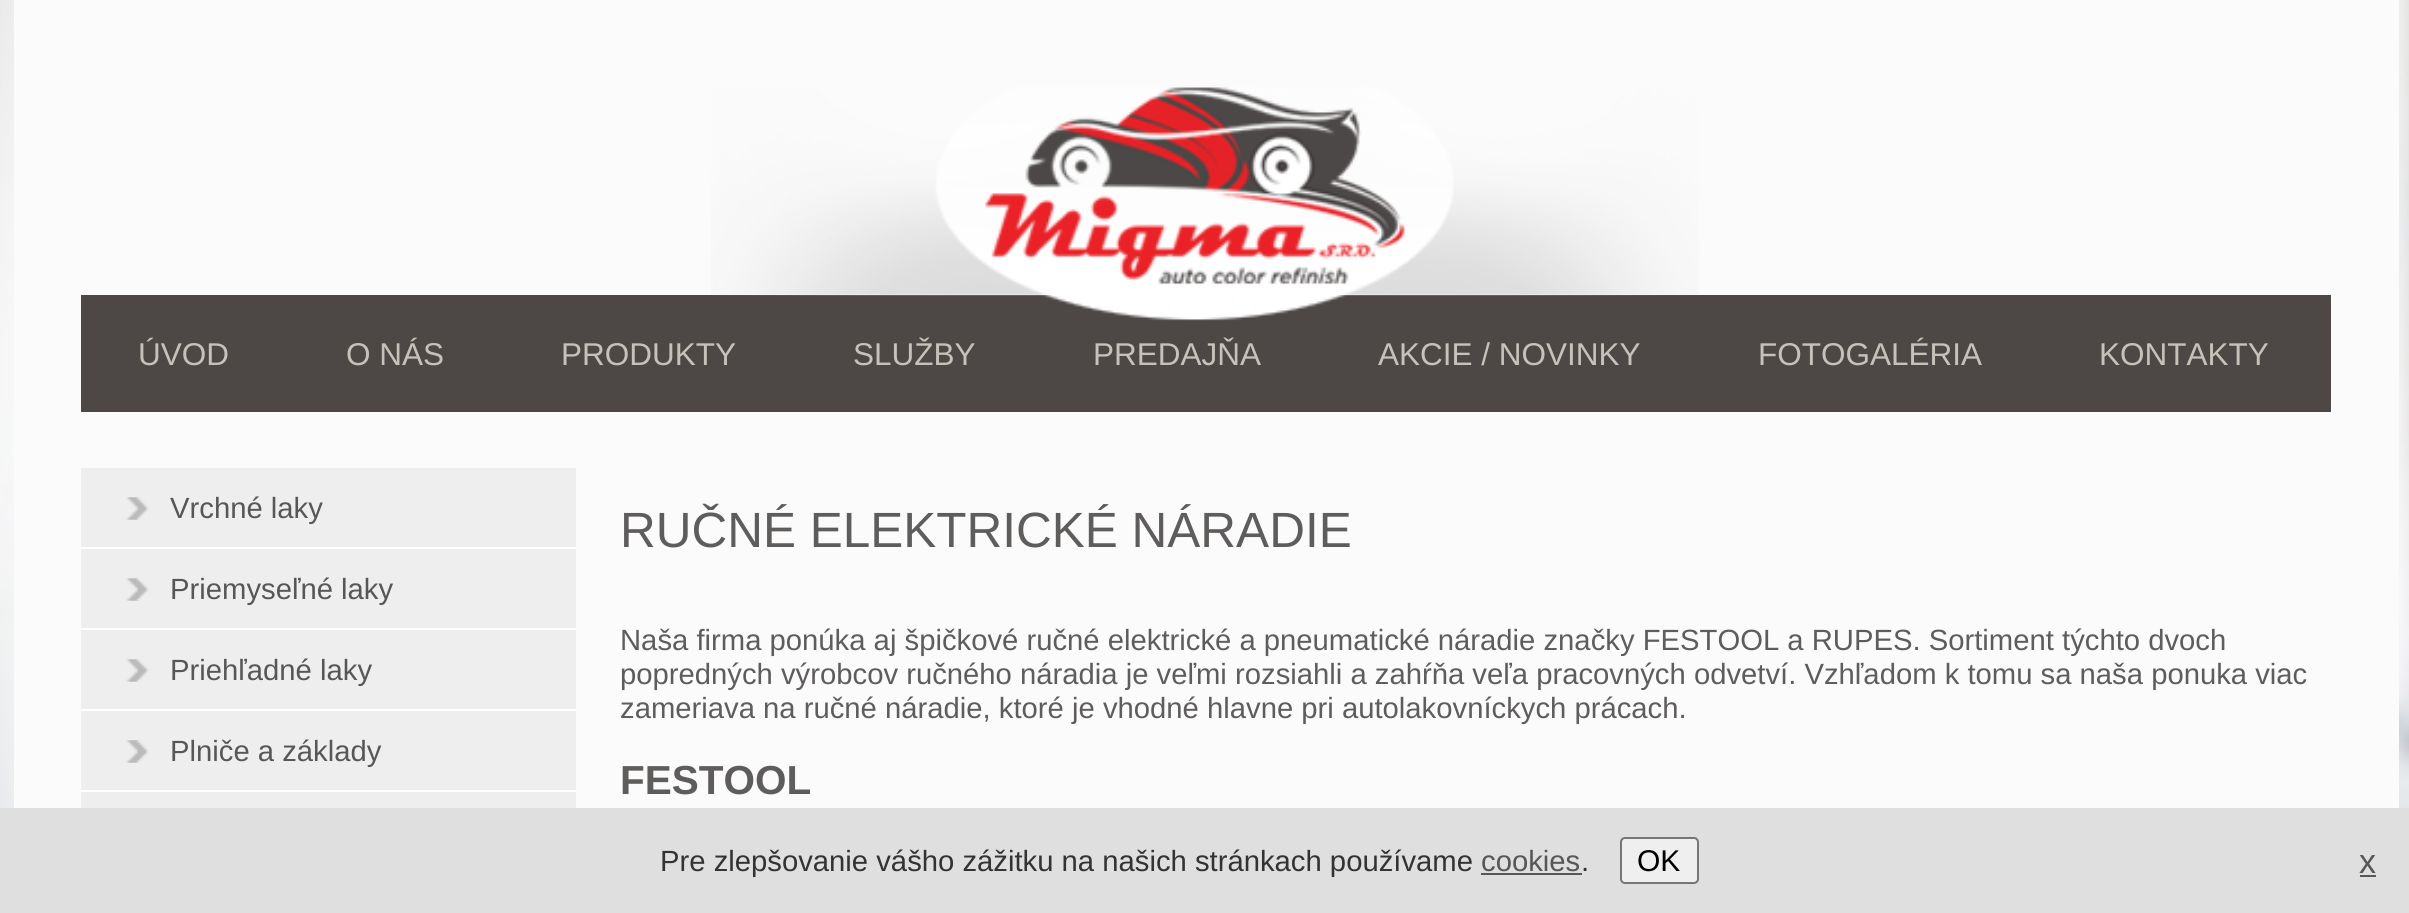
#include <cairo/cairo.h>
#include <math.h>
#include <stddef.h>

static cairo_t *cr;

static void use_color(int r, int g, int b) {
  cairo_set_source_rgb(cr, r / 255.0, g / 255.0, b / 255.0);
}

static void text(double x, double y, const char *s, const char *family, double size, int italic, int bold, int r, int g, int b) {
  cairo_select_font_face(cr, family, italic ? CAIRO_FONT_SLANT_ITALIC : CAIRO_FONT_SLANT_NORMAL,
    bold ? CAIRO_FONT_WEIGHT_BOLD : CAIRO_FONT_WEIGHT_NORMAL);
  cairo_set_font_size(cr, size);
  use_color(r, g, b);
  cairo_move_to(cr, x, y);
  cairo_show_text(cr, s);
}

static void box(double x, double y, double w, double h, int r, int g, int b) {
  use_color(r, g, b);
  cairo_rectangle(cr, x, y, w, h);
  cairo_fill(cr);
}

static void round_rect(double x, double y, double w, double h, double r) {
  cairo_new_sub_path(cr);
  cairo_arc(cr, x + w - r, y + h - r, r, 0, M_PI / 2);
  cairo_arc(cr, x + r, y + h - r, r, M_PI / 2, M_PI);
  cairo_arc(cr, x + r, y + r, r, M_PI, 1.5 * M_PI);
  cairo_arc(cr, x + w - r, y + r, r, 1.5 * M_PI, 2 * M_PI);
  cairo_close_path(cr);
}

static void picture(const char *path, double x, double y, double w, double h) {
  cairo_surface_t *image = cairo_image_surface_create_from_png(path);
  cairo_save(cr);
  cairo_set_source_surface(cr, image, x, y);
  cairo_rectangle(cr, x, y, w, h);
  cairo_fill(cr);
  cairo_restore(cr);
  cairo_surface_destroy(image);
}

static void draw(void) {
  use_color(255, 255, 255);
  cairo_paint(cr);
  picture("img_01.png", 0, 0, 2409, 808);
  box(14, 0, 2385, 808, 251, 251, 251);
  box(81, 295, 2250, 117, 77, 72, 70);
  picture("img_02.png", 711, 87, 988, 234);
  box(81, 547, 495, 2, 255, 255, 255);
  box(81, 468, 495, 79, 238, 238, 238);
  picture("img_03.png", 126, 497, 23, 23);
  box(81, 628, 495, 2, 255, 255, 255);
  box(81, 549, 495, 79, 238, 238, 238);
  picture("img_04.png", 126, 578, 23, 23);
  box(81, 709, 495, 2, 255, 255, 255);
  box(81, 630, 495, 79, 238, 238, 238);
  picture("img_03.png", 126, 659, 23, 23);
  box(81, 790, 495, 2, 255, 255, 255);
  box(81, 711, 495, 79, 238, 238, 238);
  picture("img_03.png", 126, 740, 23, 23);
  box(81, 792, 495, 16, 238, 238, 238);
  box(0, 808, 2409, 105, 223, 223, 223);
  box(1481, 873, 101, 2, 88, 86, 86);
  use_color(239, 239, 239);
  round_rect(1621, 838, 77, 45, 4);
  cairo_fill_preserve(cr);
  use_color(118, 118, 118);
  cairo_stroke(cr);
  box(2360, 875, 16, 2, 88, 86, 86);
  text(138, 365, "ÚVOD", "Liberation Sans", 31.5, 0, 0, 198, 194, 186);
  text(346, 365, "O NÁS", "Liberation Sans", 31.5, 0, 0, 198, 194, 186);
  text(561, 365, "PRODUKTY", "Liberation Sans", 31.5, 0, 0, 198, 194, 186);
  text(853, 365, "SLUŽBY", "Liberation Sans", 31.5, 0, 0, 198, 194, 186);
  text(1093, 365, "PREDAJŇA", "Liberation Sans", 31.5, 0, 0, 198, 194, 186);
  text(1378, 365, "AKCIE / NOVINKY", "Liberation Sans", 31.5, 0, 0, 198, 194, 186);
  text(1758, 365, "FOTOGALÉRIA", "Liberation Sans", 31.5, 0, 0, 198, 194, 186);
  text(2099, 365, "KONTAKTY", "Liberation Sans", 31.5, 0, 0, 198, 194, 186);
  text(170, 518, "Vrchné laky", "Liberation Sans", 29.25, 0, 0, 88, 86, 86);
  text(170, 599, "Priemyseľné laky", "Liberation Sans", 29.25, 0, 0, 88, 86, 86);
  text(170, 680, "Priehľadné laky", "Liberation Sans", 29.25, 0, 0, 88, 86, 86);
  text(170, 761, "Plniče a základy", "Liberation Sans", 29.25, 0, 0, 88, 86, 86);
  text(620, 547, "RUČNÉ ELEKTRICKÉ NÁRADIE", "Liberation Sans", 49.5, 0, 0, 95, 92, 92);
  text(620, 650, "Naša firma ponúka aj špičkové ručné elektrické a pneumatické náradie značky FESTOOL a RUPES. Sortiment týchto dvoch", "Liberation Sans", 29.25, 0, 0, 95, 92, 92);
  text(620, 684, "popredných výrobcov ručného náradia je veľmi rozsiahli a zahŕňa veľa pracovných odvetví. Vzhľadom k tomu sa naša ponuka viac", "Liberation Sans", 29.25, 0, 0, 95, 92, 92);
  text(620, 718, "zameriava na ručné náradie, ktoré je vhodné hlavne pri autolakovníckych prácach.", "Liberation Sans", 29.25, 0, 0, 95, 92, 92);
  text(620, 794, "FESTOOL", "Liberation Sans", 40.5, 0, 1, 95, 92, 92);
  text(660, 871, "Pre zlepšovanie vášho zážitku na našich stránkach používame", "Liberation Sans", 29.25, 0, 0, 51, 51, 51);
  text(1481, 871, "cookies", "Liberation Sans", 29.25, 0, 0, 88, 86, 86);
  text(1581, 871, ".", "Liberation Sans", 29.25, 0, 0, 51, 51, 51);
  text(1637, 871, "OK", "Liberation Sans", 30, 0, 0, 0, 0, 0);
  text(2359, 873, "x", "Liberation Sans", 34, 0, 0, 88, 86, 86);
}

int main(void) {
  cairo_surface_t *surface = cairo_image_surface_create(CAIRO_FORMAT_RGB24, 2409, 913);
  cr = cairo_create(surface);
  cairo_font_options_t *options = cairo_font_options_create();
  cairo_font_options_set_hint_metrics(options, CAIRO_HINT_METRICS_OFF);
  cairo_font_options_set_hint_style(options, CAIRO_HINT_STYLE_NONE);
  cairo_set_font_options(cr, options);
  cairo_set_miter_limit(cr, 4);
  draw();
  cairo_surface_write_to_png(surface, "out.png");
  cairo_font_options_destroy(options);
  cairo_destroy(cr);
  cairo_surface_destroy(surface);
  return 0;
}
